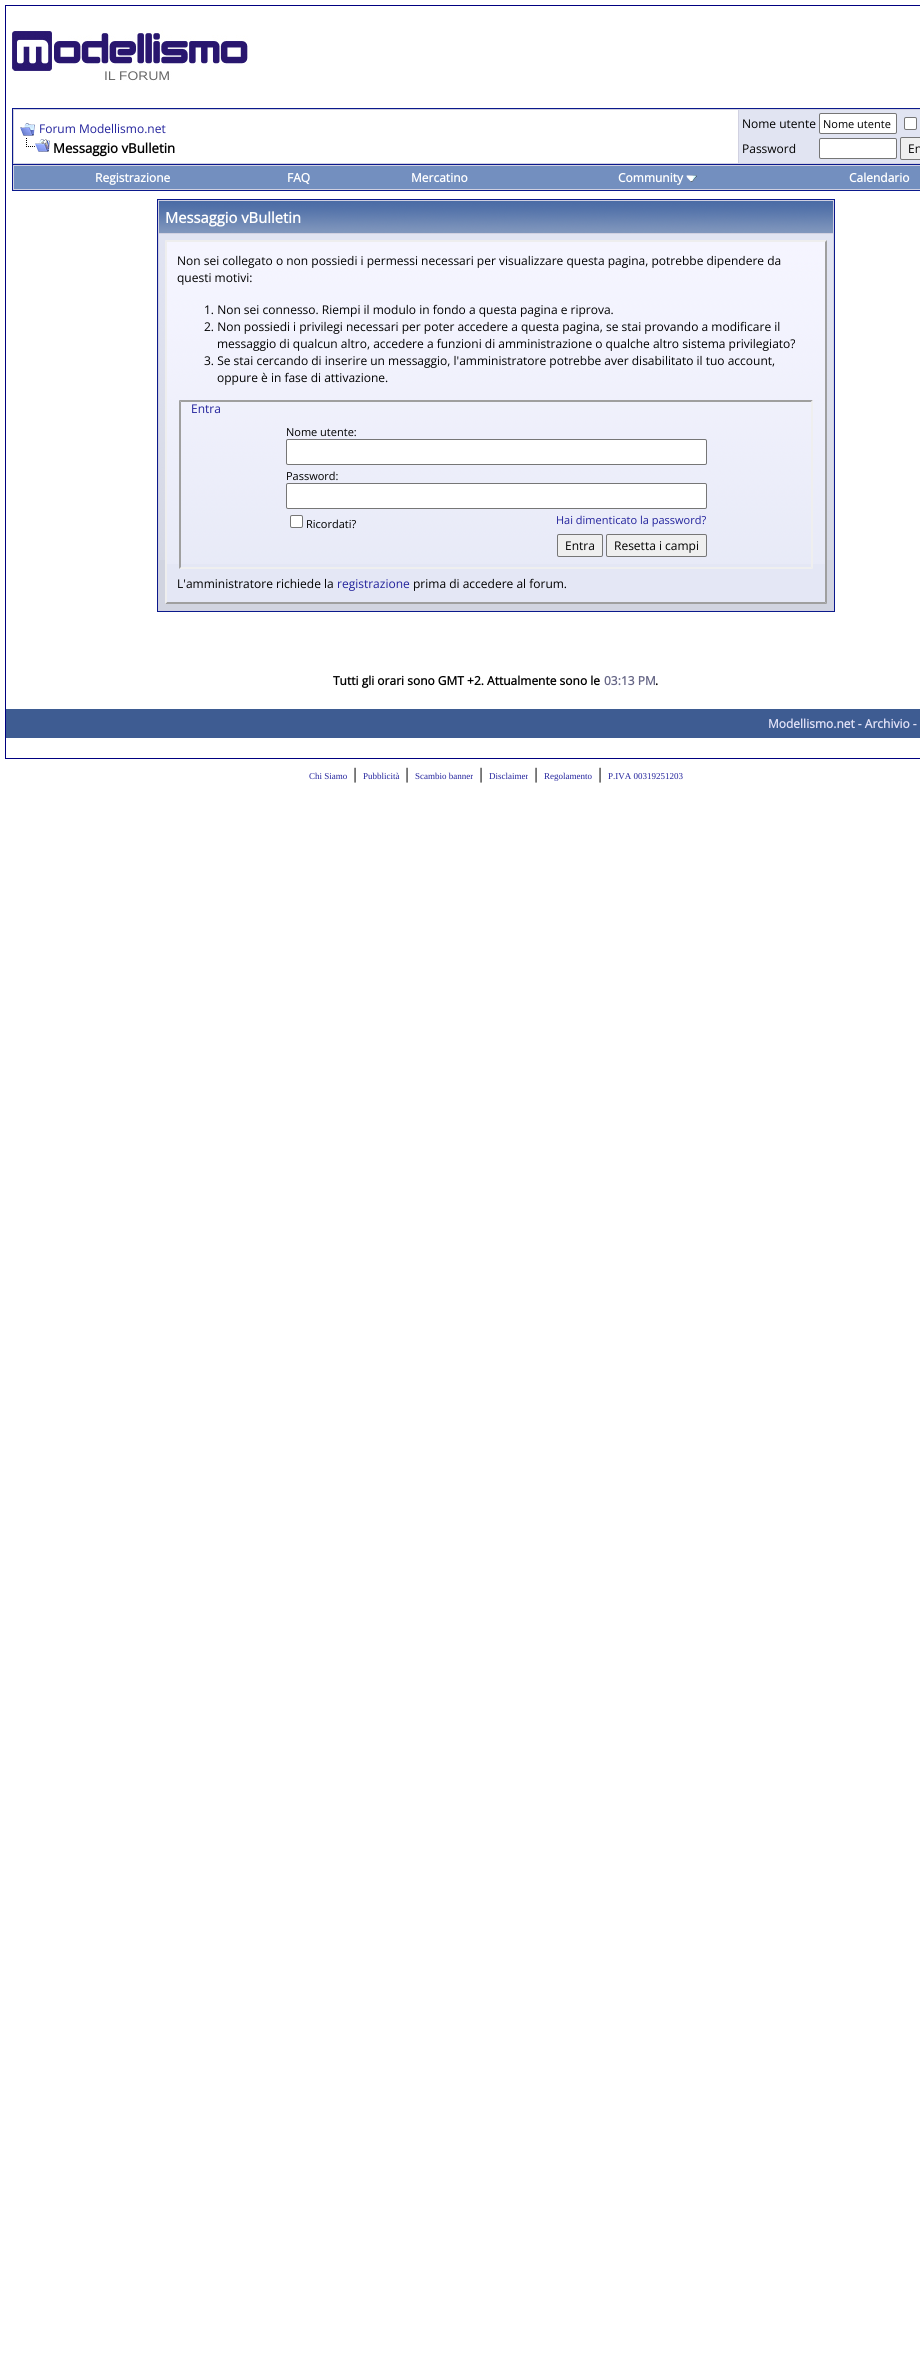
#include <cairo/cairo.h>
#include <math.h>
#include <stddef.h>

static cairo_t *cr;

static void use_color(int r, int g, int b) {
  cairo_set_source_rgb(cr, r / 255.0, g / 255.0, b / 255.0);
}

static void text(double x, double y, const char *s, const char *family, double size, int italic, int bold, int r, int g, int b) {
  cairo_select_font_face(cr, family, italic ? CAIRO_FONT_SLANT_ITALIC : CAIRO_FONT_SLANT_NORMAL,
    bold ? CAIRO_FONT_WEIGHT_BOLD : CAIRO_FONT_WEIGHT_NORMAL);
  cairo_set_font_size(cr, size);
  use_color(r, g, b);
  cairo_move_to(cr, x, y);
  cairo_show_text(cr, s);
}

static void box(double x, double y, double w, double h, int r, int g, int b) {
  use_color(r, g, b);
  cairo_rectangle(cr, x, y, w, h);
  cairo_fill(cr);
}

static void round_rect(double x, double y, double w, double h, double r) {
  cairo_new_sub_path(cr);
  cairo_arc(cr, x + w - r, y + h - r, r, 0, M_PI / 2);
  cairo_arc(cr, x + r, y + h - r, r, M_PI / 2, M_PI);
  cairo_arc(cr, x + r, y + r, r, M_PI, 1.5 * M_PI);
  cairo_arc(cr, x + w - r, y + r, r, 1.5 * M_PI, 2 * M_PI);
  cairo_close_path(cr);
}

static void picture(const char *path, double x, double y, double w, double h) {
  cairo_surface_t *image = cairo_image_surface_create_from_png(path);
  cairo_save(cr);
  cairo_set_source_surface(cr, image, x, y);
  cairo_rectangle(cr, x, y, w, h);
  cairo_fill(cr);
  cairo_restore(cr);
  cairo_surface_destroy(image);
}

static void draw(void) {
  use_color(255, 255, 255);
  cairo_paint(cr);
  cairo_rectangle(cr, 5.5, 5.5, 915, 753);
  use_color(0, 0, 128);
  cairo_set_line_width(cr, 1);
  cairo_stroke(cr);
  picture("img_01.png", 12, 30, 236, 51);
  use_color(209, 209, 225);
  cairo_rectangle(cr, 12.5, 108.5, 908, 56);
  cairo_fill_preserve(cr);
  use_color(11, 25, 140);
  cairo_stroke(cr);
  box(14, 110, 724, 53, 255, 255, 255);
  picture("img_02.png", 20, 123, 15, 13);
  picture("img_03.png", 26, 138, 24, 14);
  box(739, 110, 181, 53, 225, 228, 242);
  use_color(255, 255, 255);
  round_rect(819.5, 113.5, 77, 20, 1.5);
  cairo_fill_preserve(cr);
  use_color(118, 118, 118);
  cairo_stroke(cr);
  use_color(255, 255, 255);
  round_rect(904.5, 117.5, 12, 12, 1.5);
  cairo_fill_preserve(cr);
  use_color(118, 118, 118);
  cairo_stroke(cr);
  use_color(255, 255, 255);
  round_rect(819.5, 138.5, 77, 20, 1.5);
  cairo_fill_preserve(cr);
  use_color(118, 118, 118);
  cairo_stroke(cr);
  use_color(239, 239, 239);
  round_rect(900.5, 137.5, 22, 22, 1.5);
  cairo_fill_preserve(cr);
  use_color(118, 118, 118);
  cairo_stroke(cr);
  box(13, 165, 907, 25, 209, 209, 225);
  box(12, 190, 908, 1, 11, 25, 140);
  box(12, 165, 1, 26, 11, 25, 140);
  box(14, 166, 906, 23, 115, 143, 191);
  picture("img_04.png", 686, 175, 11, 7);
  use_color(209, 209, 225);
  cairo_rectangle(cr, 157.5, 199.5, 677, 412);
  cairo_fill_preserve(cr);
  use_color(11, 25, 140);
  cairo_stroke(cr);
  picture("img_05.png", 159, 201, 674, 32);
  box(159, 560, 674, 50, 209, 212, 224);
  picture("img_06.png", 159, 234, 674, 326);
  box(165, 240, 662, 364, 228, 231, 245);
  picture("img_07.png", 167, 242, 658, 322);
  use_color(238, 238, 238);
  cairo_new_path(cr);
  cairo_move_to(cr, 165, 240);
  cairo_line_to(cr, 827, 240);
  cairo_line_to(cr, 825, 242);
  cairo_line_to(cr, 167, 242);
  cairo_close_path(cr);
  cairo_fill(cr);
  use_color(159, 159, 159);
  cairo_new_path(cr);
  cairo_move_to(cr, 827, 240);
  cairo_line_to(cr, 827, 604);
  cairo_line_to(cr, 825, 602);
  cairo_line_to(cr, 825, 242);
  cairo_close_path(cr);
  cairo_fill(cr);
  cairo_new_path(cr);
  cairo_move_to(cr, 827, 604);
  cairo_line_to(cr, 165, 604);
  cairo_line_to(cr, 167, 602);
  cairo_line_to(cr, 825, 602);
  cairo_close_path(cr);
  cairo_fill(cr);
  use_color(238, 238, 238);
  cairo_new_path(cr);
  cairo_move_to(cr, 165, 604);
  cairo_line_to(cr, 165, 240);
  cairo_line_to(cr, 167, 242);
  cairo_line_to(cr, 167, 602);
  cairo_close_path(cr);
  cairo_fill(cr);
  use_color(159, 159, 159);
  cairo_new_path(cr);
  cairo_move_to(cr, 179, 400);
  cairo_line_to(cr, 813, 400);
  cairo_line_to(cr, 811, 402);
  cairo_line_to(cr, 181, 402);
  cairo_close_path(cr);
  cairo_fill(cr);
  use_color(239, 239, 239);
  cairo_new_path(cr);
  cairo_move_to(cr, 813, 400);
  cairo_line_to(cr, 813, 569);
  cairo_line_to(cr, 811, 567);
  cairo_line_to(cr, 811, 402);
  cairo_close_path(cr);
  cairo_fill(cr);
  cairo_new_path(cr);
  cairo_move_to(cr, 813, 569);
  cairo_line_to(cr, 179, 569);
  cairo_line_to(cr, 181, 567);
  cairo_line_to(cr, 811, 567);
  cairo_close_path(cr);
  cairo_fill(cr);
  use_color(159, 159, 159);
  cairo_new_path(cr);
  cairo_move_to(cr, 179, 569);
  cairo_line_to(cr, 179, 400);
  cairo_line_to(cr, 181, 402);
  cairo_line_to(cr, 181, 567);
  cairo_close_path(cr);
  cairo_fill(cr);
  use_color(255, 255, 255);
  round_rect(286.5, 439.5, 420, 25, 1.5);
  cairo_fill_preserve(cr);
  use_color(118, 118, 118);
  cairo_stroke(cr);
  use_color(255, 255, 255);
  round_rect(286.5, 483.5, 420, 25, 1.5);
  cairo_fill_preserve(cr);
  use_color(118, 118, 118);
  cairo_stroke(cr);
  use_color(255, 255, 255);
  round_rect(290.5, 515.5, 12, 12, 1.5);
  cairo_fill_preserve(cr);
  use_color(118, 118, 118);
  cairo_stroke(cr);
  use_color(239, 239, 239);
  round_rect(557.5, 534.5, 45, 22, 1.5);
  cairo_fill_preserve(cr);
  use_color(118, 118, 118);
  cairo_stroke(cr);
  use_color(239, 239, 239);
  round_rect(606.5, 534.5, 100, 22, 1.5);
  cairo_fill_preserve(cr);
  use_color(118, 118, 118);
  cairo_stroke(cr);
  box(6, 709, 914, 29, 62, 92, 146);
  text(39, 133, "Forum Modellismo.net", "Open Sans", 12, 0, 0, 34, 34, 156);
  text(53, 153, "Messaggio vBulletin", "Open Sans", 13.25, 0, 1, 0, 0, 0);
  text(742, 128, "Nome utente", "Open Sans", 12, 0, 0, 0, 0, 0);
  text(823, 128, "Nome utente", "Open Sans", 11, 0, 0, 0, 0, 0);
  text(742, 153, "Password", "Open Sans", 12, 0, 0, 0, 0, 0);
  text(908, 153, "En", "Open Sans", 12, 0, 0, 0, 0, 0);
  text(95, 182, "Registrazione", "Open Sans", 12, 0, 1, 255, 255, 255);
  text(287, 182, "FAQ", "Open Sans", 12, 0, 1, 255, 255, 255);
  text(411, 182, "Mercatino", "Open Sans", 12, 0, 1, 255, 255, 255);
  text(618, 182, "Community", "Open Sans", 12, 0, 1, 255, 255, 255);
  text(849, 182, "Calendario", "Open Sans", 12, 0, 1, 255, 255, 255);
  text(165, 223, "Messaggio vBulletin", "Open Sans", 14.75, 0, 1, 255, 255, 255);
  text(177, 265, "Non sei collegato o non possiedi i permessi necessari per visualizzare questa pagina, potrebbe dipendere da", "Open Sans", 12, 0, 0, 0, 0, 0);
  text(177, 282, "questi motivi:", "Open Sans", 12, 0, 0, 0, 0, 0);
  text(204, 314, "1. Non sei connesso. Riempi il modulo in fondo a questa pagina e riprova.", "Open Sans", 12, 0, 0, 0, 0, 0);
  text(204, 331, "2. Non possiedi i privilegi necessari per poter accedere a questa pagina, se stai provando a modificare il", "Open Sans", 12, 0, 0, 0, 0, 0);
  text(217, 348, "messaggio di qualcun altro, accedere a funzioni di amministrazione o qualche altro sistema privilegiato?", "Open Sans", 12, 0, 0, 0, 0, 0);
  text(204, 365, "3. Se stai cercando di inserire un messaggio, l'amministratore potrebbe aver disabilitato il tuo account,", "Open Sans", 12, 0, 0, 0, 0, 0);
  text(217, 382, "oppure è in fase di attivazione.", "Open Sans", 12, 0, 0, 0, 0, 0);
  text(191, 413, "Entra", "Open Sans", 12, 0, 0, 34, 34, 156);
  text(286, 436, "Nome utente:", "Open Sans", 11, 0, 0, 0, 0, 0);
  text(286, 480, "Password:", "Open Sans", 11, 0, 0, 0, 0, 0);
  text(306, 528, "Ricordati?", "Open Sans", 11, 0, 0, 0, 0, 0);
  text(556, 524, "Hai dimenticato la password?", "Open Sans", 11, 0, 0, 34, 34, 156);
  text(565, 550, "Entra", "Open Sans", 12, 0, 0, 0, 0, 0);
  text(614, 550, "Resetta i campi", "Open Sans", 12, 0, 0, 0, 0, 0);
  text(177, 588, "L'amministratore richiede la", "Open Sans", 12, 0, 0, 0, 0, 0);
  text(337, 588, "registrazione", "Open Sans", 12, 0, 0, 34, 34, 156);
  text(413, 588, "prima di accedere al forum.", "Open Sans", 12, 0, 0, 0, 0, 0);
  text(333, 685, "Tutti gli orari sono GMT +2. Attualmente sono le", "Open Sans", 12, 0, 1, 0, 0, 0);
  text(604, 685, "03:13 PM", "Open Sans", 12, 0, 1, 102, 102, 134);
  text(655, 685, ".", "Open Sans", 12, 0, 1, 0, 0, 0);
  text(768, 728, "Modellismo.net - Archivio -", "Open Sans", 12, 0, 1, 224, 224, 246);
  text(309, 779, "Chi Siamo", "Liberation Serif", 9, 0, 0, 34, 34, 156);
  text(351, 779, "|", "Open Sans", 14.75, 0, 0, 0, 0, 0);
  text(363, 779, "Pubblicità", "Liberation Serif", 9, 0, 0, 34, 34, 156);
  text(403, 779, "|", "Open Sans", 14.75, 0, 0, 0, 0, 0);
  text(415, 779, "Scambio banner", "Liberation Serif", 9, 0, 0, 34, 34, 156);
  text(477, 779, "|", "Open Sans", 14.75, 0, 0, 0, 0, 0);
  text(489, 779, "Disclaimer", "Liberation Serif", 9, 0, 0, 34, 34, 156);
  text(532, 779, "|", "Open Sans", 14.75, 0, 0, 0, 0, 0);
  text(544, 779, "Regolamento", "Liberation Serif", 9, 0, 0, 34, 34, 156);
  text(596, 779, "|", "Open Sans", 14.75, 0, 0, 0, 0, 0);
  text(608, 779, "P.IVA 00319251203", "Liberation Serif", 9, 0, 0, 34, 34, 156);
}

int main(void) {
  cairo_surface_t *surface = cairo_image_surface_create(CAIRO_FORMAT_RGB24, 920, 2366);
  cr = cairo_create(surface);
  cairo_font_options_t *options = cairo_font_options_create();
  cairo_font_options_set_hint_metrics(options, CAIRO_HINT_METRICS_OFF);
  cairo_font_options_set_hint_style(options, CAIRO_HINT_STYLE_NONE);
  cairo_set_font_options(cr, options);
  cairo_set_miter_limit(cr, 4);
  draw();
  cairo_surface_write_to_png(surface, "out.png");
  cairo_font_options_destroy(options);
  cairo_destroy(cr);
  cairo_surface_destroy(surface);
  return 0;
}
